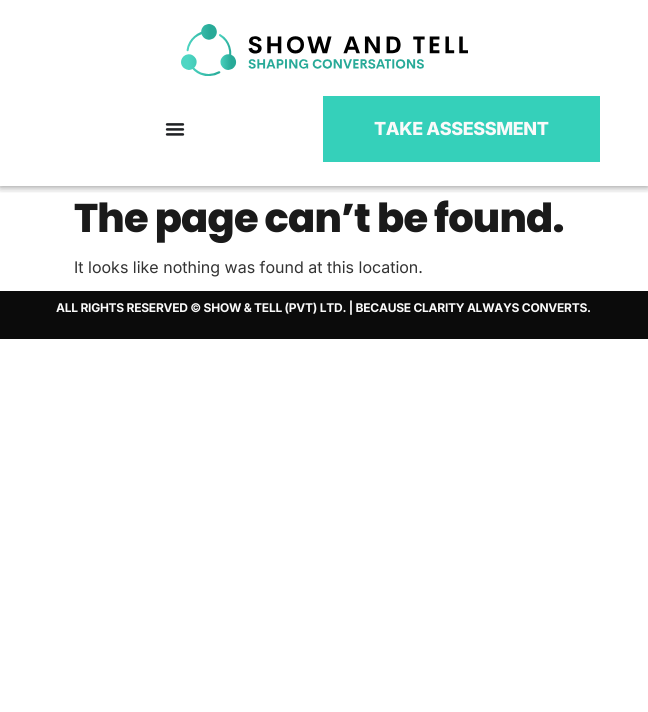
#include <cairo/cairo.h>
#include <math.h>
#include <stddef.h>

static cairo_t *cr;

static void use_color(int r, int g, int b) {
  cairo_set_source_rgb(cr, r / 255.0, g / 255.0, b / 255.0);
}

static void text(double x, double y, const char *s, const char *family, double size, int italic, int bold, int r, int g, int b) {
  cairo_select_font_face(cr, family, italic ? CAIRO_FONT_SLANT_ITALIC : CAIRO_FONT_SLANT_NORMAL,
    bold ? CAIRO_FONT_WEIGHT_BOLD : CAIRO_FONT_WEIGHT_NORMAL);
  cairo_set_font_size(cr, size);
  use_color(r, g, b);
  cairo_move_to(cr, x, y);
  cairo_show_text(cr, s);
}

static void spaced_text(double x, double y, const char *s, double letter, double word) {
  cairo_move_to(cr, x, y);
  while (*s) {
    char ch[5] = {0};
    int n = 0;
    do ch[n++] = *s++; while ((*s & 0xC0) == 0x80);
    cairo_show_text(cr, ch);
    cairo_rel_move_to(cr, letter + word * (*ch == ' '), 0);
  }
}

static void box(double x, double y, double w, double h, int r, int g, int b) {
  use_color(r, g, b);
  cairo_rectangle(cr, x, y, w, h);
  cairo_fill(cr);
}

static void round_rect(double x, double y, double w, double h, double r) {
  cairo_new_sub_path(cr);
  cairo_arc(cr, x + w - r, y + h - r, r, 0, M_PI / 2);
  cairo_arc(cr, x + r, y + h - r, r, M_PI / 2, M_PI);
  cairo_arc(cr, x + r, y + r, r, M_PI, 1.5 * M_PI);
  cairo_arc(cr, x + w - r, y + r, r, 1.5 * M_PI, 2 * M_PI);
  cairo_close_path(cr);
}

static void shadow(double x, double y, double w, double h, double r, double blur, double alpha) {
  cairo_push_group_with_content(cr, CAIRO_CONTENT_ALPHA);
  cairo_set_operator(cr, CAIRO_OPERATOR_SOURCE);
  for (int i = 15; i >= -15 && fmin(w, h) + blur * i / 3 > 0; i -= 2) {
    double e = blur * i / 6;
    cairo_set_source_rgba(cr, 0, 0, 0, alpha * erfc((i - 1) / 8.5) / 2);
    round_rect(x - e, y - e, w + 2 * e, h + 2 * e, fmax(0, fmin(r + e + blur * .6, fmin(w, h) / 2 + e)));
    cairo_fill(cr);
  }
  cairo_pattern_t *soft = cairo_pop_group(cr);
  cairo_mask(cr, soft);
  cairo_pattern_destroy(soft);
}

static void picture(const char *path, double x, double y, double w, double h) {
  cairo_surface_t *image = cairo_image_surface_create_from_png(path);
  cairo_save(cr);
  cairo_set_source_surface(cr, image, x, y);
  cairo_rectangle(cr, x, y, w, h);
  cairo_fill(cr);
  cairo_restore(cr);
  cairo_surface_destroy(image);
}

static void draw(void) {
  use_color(255, 255, 255);
  cairo_paint(cr);
  cairo_save(cr);
  cairo_rectangle(cr, 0, 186, 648, 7);
  cairo_clip(cr);
  use_color(0, 0, 0);
  shadow(0, -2, 648, 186, 0, 5, 0.5);
  cairo_restore(cr);
  cairo_save(cr);
  cairo_rectangle(cr, 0, 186, 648, 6);
  cairo_clip(cr);
  use_color(0, 0, 0);
  shadow(0, 0, 648, 186, 0, 5, 0.2);
  cairo_restore(cr);
  picture("img_01.png", 181, 24, 287, 52);
  picture("img_02.png", 165, 123, 20, 13);
  box(323, 96, 277, 66, 53, 208, 186);
  box(0, 291, 648, 48, 11, 11, 11);
  cairo_select_font_face(cr, "Inter ExtraBold", CAIRO_FONT_SLANT_NORMAL, CAIRO_FONT_WEIGHT_NORMAL);
  cairo_set_font_size(cr, 18);
  use_color(250, 250, 250);
  spaced_text(374, 135, "TAKE ASSESSMENT", -0.4, 0);
  cairo_select_font_face(cr, "Poppins ExtraBold", CAIRO_FONT_SLANT_NORMAL, CAIRO_FONT_WEIGHT_NORMAL);
  cairo_set_font_size(cr, 40);
  use_color(26, 26, 26);
  spaced_text(74, 232, "The page can’t be found.", -0.8, 0);
  text(74, 273, "It looks like nothing was found at this location.", "Inter", 16, 0, 0, 51, 51, 51);
  cairo_select_font_face(cr, "Inter", CAIRO_FONT_SLANT_NORMAL, CAIRO_FONT_WEIGHT_BOLD);
  cairo_set_font_size(cr, 12);
  use_color(250, 250, 250);
  spaced_text(56, 312, "ALL RIGHTS RESERVED © SHOW & TELL (PVT) LTD. | BECAUSE CLARITY ALWAYS CONVERTS.", -0.25, 0);
}

int main(void) {
  cairo_surface_t *surface = cairo_image_surface_create(CAIRO_FORMAT_RGB24, 648, 712);
  cr = cairo_create(surface);
  cairo_font_options_t *options = cairo_font_options_create();
  cairo_font_options_set_hint_metrics(options, CAIRO_HINT_METRICS_OFF);
  cairo_font_options_set_hint_style(options, CAIRO_HINT_STYLE_NONE);
  cairo_set_font_options(cr, options);
  cairo_set_miter_limit(cr, 4);
  draw();
  cairo_surface_write_to_png(surface, "out.png");
  cairo_font_options_destroy(options);
  cairo_destroy(cr);
  cairo_surface_destroy(surface);
  return 0;
}
